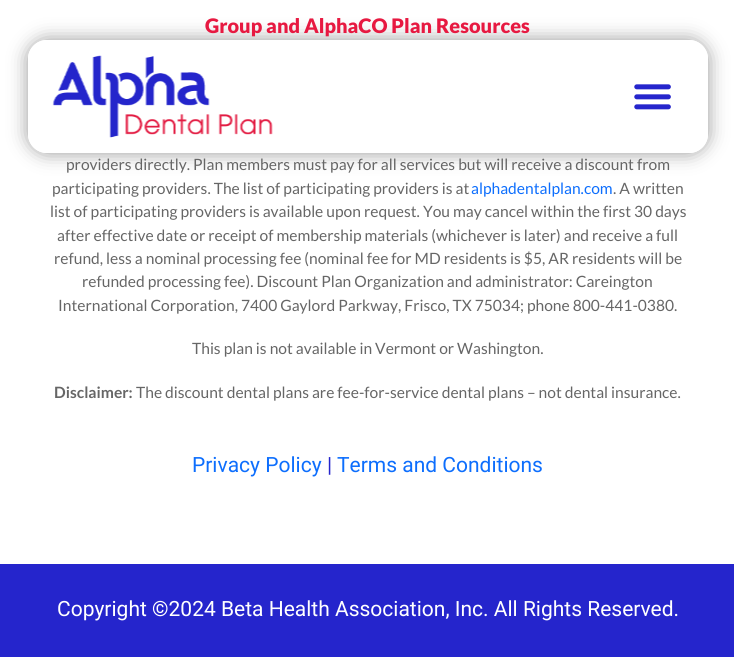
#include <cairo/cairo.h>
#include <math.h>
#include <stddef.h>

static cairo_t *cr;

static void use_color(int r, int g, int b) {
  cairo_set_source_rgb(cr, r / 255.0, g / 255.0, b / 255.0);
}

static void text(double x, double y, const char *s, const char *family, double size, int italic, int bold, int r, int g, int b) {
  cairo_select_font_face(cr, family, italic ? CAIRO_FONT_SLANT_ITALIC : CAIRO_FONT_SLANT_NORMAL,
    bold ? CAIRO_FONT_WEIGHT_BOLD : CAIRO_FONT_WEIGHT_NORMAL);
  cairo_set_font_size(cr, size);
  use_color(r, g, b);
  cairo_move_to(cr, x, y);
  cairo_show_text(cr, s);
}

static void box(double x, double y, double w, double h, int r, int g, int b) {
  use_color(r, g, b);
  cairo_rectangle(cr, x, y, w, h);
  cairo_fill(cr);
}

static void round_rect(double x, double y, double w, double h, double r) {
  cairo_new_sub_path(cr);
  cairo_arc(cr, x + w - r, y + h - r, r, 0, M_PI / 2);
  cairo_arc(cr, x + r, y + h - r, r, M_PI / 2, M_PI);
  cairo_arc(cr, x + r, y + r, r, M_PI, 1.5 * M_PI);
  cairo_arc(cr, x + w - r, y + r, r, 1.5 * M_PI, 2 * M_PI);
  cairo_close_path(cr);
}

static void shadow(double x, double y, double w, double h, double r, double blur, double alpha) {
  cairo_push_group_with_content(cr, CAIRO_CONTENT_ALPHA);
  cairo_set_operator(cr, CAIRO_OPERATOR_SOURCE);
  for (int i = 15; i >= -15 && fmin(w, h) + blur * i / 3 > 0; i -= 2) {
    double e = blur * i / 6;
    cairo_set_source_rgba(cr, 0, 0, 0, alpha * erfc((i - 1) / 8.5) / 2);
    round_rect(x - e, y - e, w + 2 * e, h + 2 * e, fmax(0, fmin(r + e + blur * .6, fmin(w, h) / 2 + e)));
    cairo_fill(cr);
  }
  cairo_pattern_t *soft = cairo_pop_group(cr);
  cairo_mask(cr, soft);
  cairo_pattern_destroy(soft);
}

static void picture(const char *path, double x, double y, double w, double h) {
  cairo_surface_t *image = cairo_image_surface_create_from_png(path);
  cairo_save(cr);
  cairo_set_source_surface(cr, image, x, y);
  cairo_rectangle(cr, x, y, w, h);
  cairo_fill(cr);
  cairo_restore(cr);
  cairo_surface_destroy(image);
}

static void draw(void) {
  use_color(255, 255, 255);
  cairo_paint(cr);
  cairo_save(cr);
  cairo_set_fill_rule(cr, CAIRO_FILL_RULE_EVEN_ODD);
  cairo_new_path(cr);
  cairo_move_to(cr, 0, 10);
  cairo_line_to(cr, 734, 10);
  cairo_line_to(cr, 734, 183);
  cairo_line_to(cr, 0, 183);
  cairo_close_path(cr);
  cairo_move_to(cr, 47, 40);
  cairo_line_to(cr, 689, 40);
  cairo_curve_to(cr, 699.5, 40, 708, 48.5, 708, 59);
  cairo_line_to(cr, 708, 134);
  cairo_curve_to(cr, 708, 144.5, 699.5, 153, 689, 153);
  cairo_line_to(cr, 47, 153);
  cairo_curve_to(cr, 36.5, 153, 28, 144.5, 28, 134);
  cairo_line_to(cr, 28, 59);
  cairo_curve_to(cr, 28, 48.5, 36.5, 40, 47, 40);
  cairo_close_path(cr);
  cairo_clip(cr);
  use_color(153, 153, 153);
  shadow(28, 40, 680, 113, 19, 9.5, 1);
  cairo_restore(cr);
  cairo_set_source_rgba(cr, 1, 1, 1, 0.85);
  round_rect(28, 40, 680, 113, 19);
  cairo_fill(cr);
  picture("img_01.png", 52, 55, 221, 83);
  picture("img_02.png", 634, 84, 37, 26);
  box(0, 564, 734, 93, 37, 37, 204);
  text(205, 33, "Group and AlphaCO Plan Resources", "Lato Black", 20, 0, 0, 231, 25, 65);
  text(66, 170, "providers directly. Plan members must pay for all services but will receive a discount from", "Lato", 15.6, 0, 0, 102, 102, 102);
  text(52, 194, "participating providers. The list of participating providers is at", "Lato", 15.6, 0, 0, 102, 102, 102);
  text(471, 194, "alphadentalplan.com", "Lato", 15.6, 0, 0, 13, 110, 253);
  text(613, 194, ". A written", "Lato", 15.6, 0, 0, 102, 102, 102);
  text(50, 217, "list of participating providers is available upon request. You may cancel within the first 30 days", "Lato", 15.6, 0, 0, 102, 102, 102);
  text(57, 241, "after effective date or receipt of membership materials (whichever is later) and receive a full", "Lato", 15.6, 0, 0, 102, 102, 102);
  text(54, 264, "refund, less a nominal processing fee (nominal fee for MD residents is $5, AR residents will be", "Lato", 15.6, 0, 0, 102, 102, 102);
  text(82, 287, "refunded processing fee). Discount Plan Organization and administrator: Careington", "Lato", 15.6, 0, 0, 102, 102, 102);
  text(58, 311, "International Corporation, 7400 Gaylord Parkway, Frisco, TX 75034; phone 800-441-0380.", "Lato", 15.6, 0, 0, 102, 102, 102);
  text(192, 354, "This plan is not available in Vermont or Washington.", "Lato", 15.6, 0, 0, 102, 102, 102);
  text(54, 398, "Disclaimer:", "Lato", 15.6, 0, 1, 102, 102, 102);
  text(136, 398, "The discount dental plans are fee-for-service dental plans – not dental insurance.", "Lato", 15.6, 0, 0, 102, 102, 102);
  text(192, 472, "Privacy Policy", "Roboto", 21, 0, 0, 13, 110, 253);
  text(327, 472, "|", "Roboto", 21, 0, 0, 37, 37, 204);
  text(337, 472, "Terms and Conditions", "Roboto", 21, 0, 0, 13, 110, 253);
  text(57, 616, "Copyright ©2024 Beta Health Association, Inc. All Rights Reserved.", "Roboto", 21, 0, 0, 255, 255, 255);
}

int main(void) {
  cairo_surface_t *surface = cairo_image_surface_create(CAIRO_FORMAT_RGB24, 734, 657);
  cr = cairo_create(surface);
  cairo_font_options_t *options = cairo_font_options_create();
  cairo_font_options_set_hint_metrics(options, CAIRO_HINT_METRICS_OFF);
  cairo_font_options_set_hint_style(options, CAIRO_HINT_STYLE_NONE);
  cairo_set_font_options(cr, options);
  cairo_set_miter_limit(cr, 4);
  draw();
  cairo_surface_write_to_png(surface, "out.png");
  cairo_font_options_destroy(options);
  cairo_destroy(cr);
  cairo_surface_destroy(surface);
  return 0;
}
